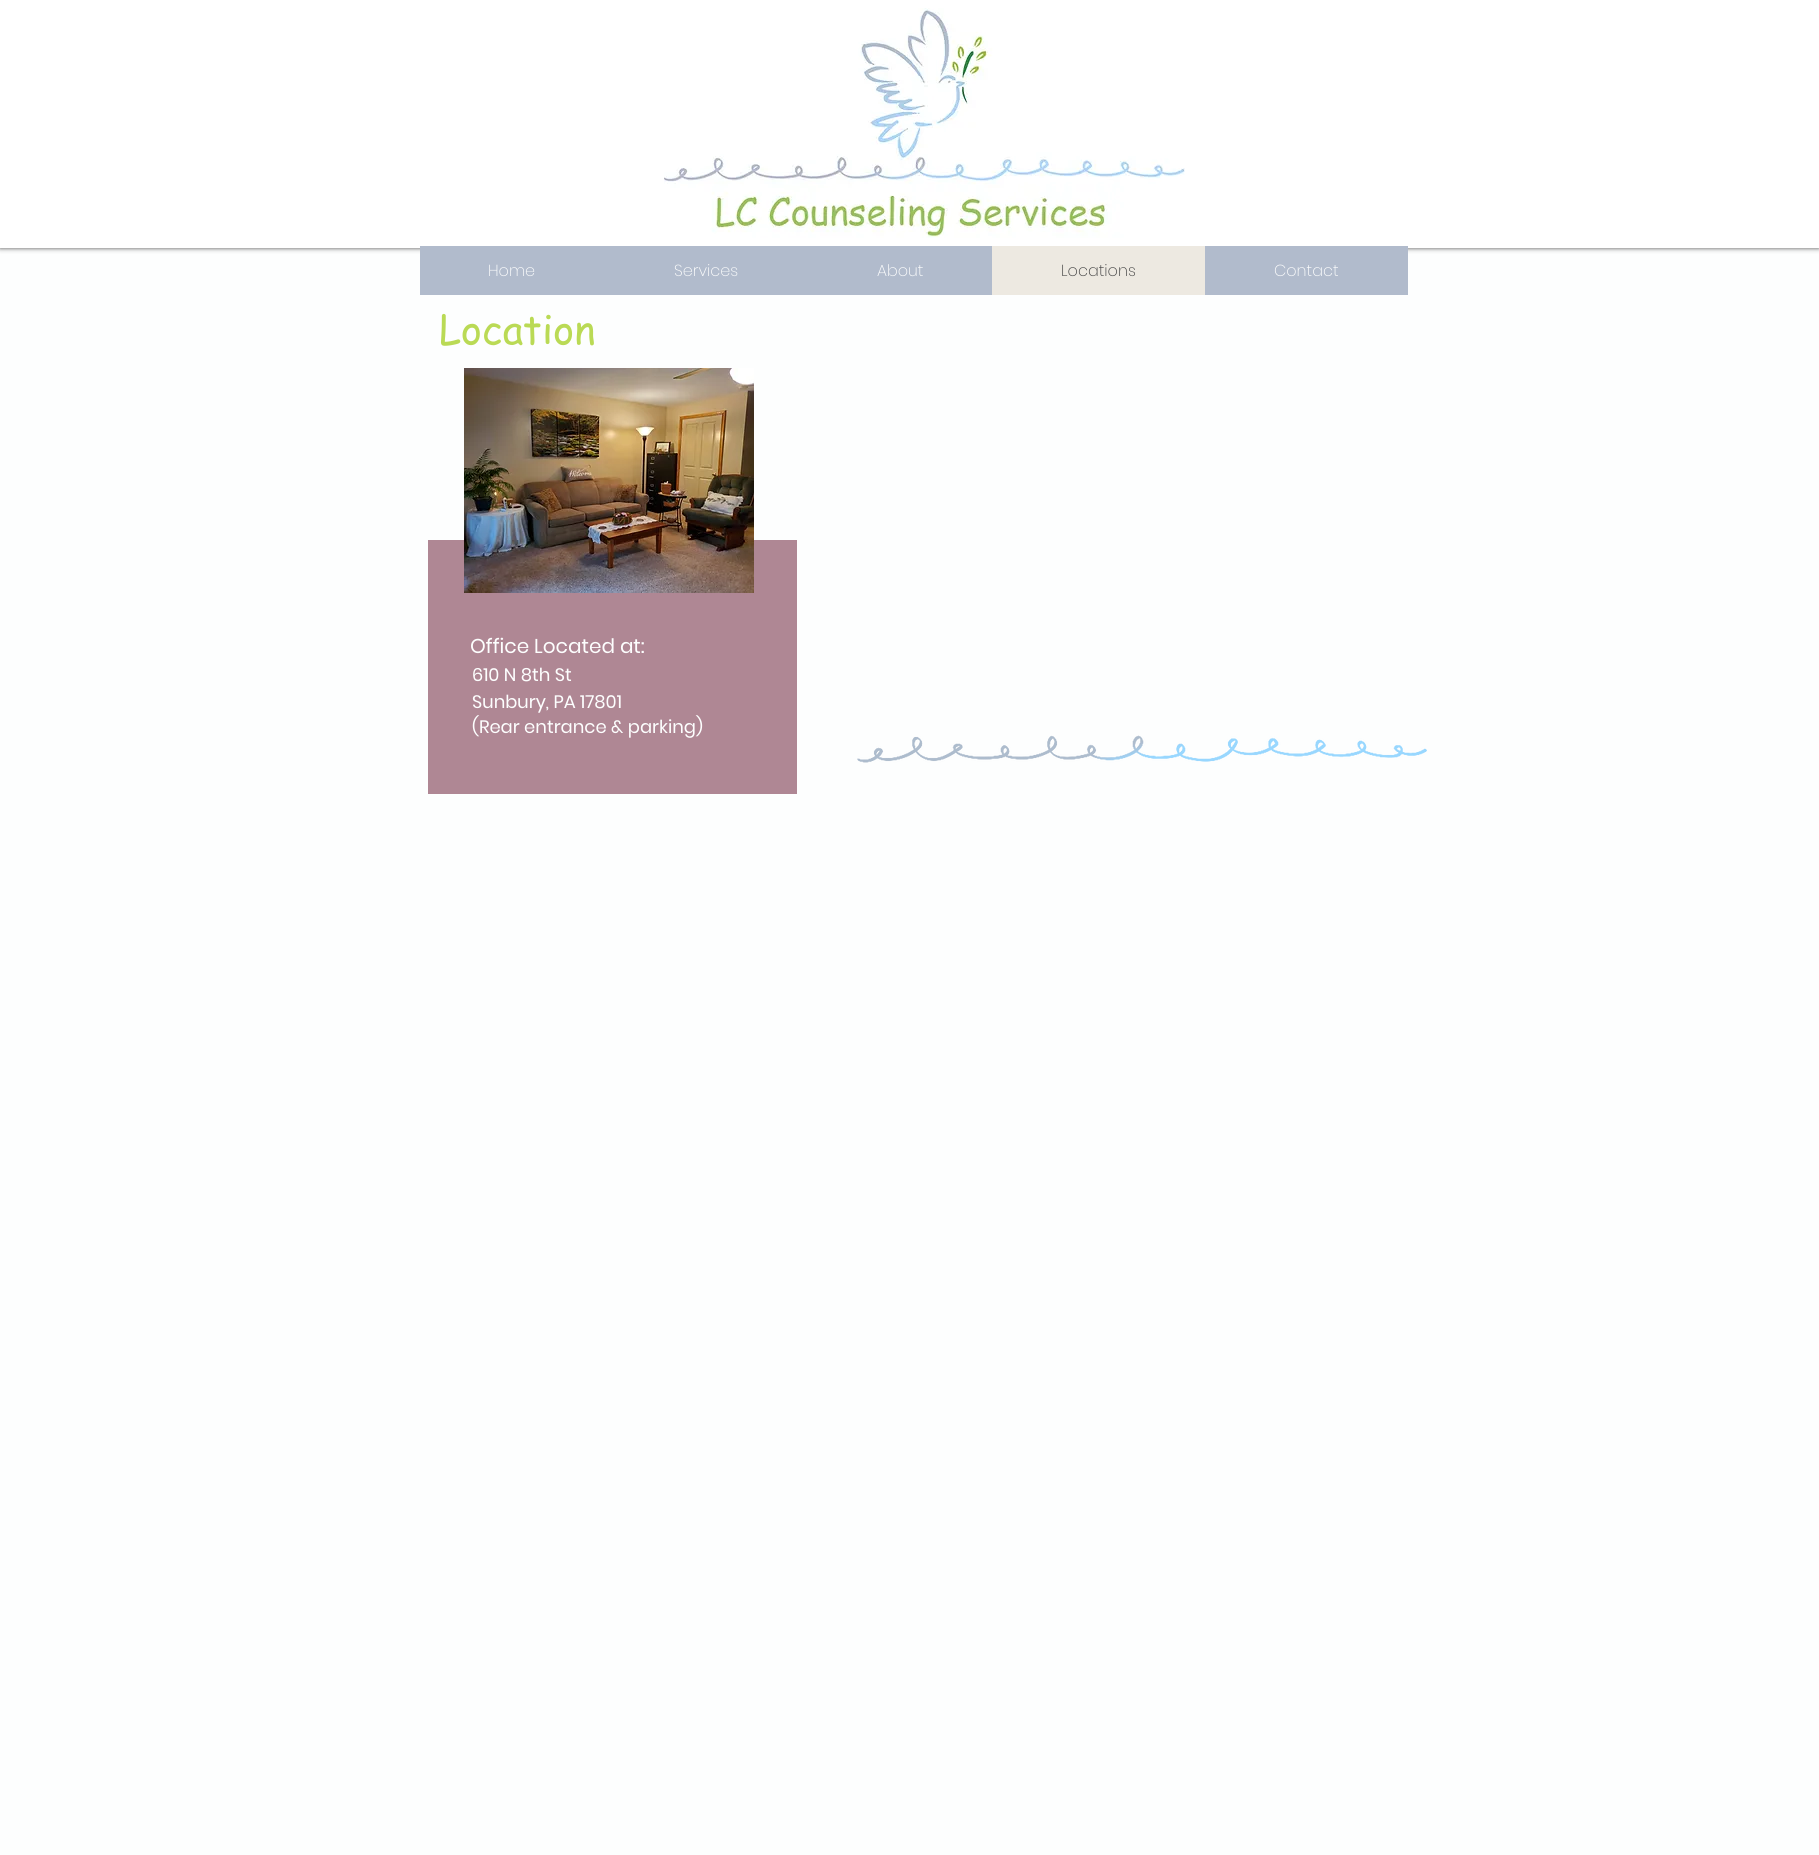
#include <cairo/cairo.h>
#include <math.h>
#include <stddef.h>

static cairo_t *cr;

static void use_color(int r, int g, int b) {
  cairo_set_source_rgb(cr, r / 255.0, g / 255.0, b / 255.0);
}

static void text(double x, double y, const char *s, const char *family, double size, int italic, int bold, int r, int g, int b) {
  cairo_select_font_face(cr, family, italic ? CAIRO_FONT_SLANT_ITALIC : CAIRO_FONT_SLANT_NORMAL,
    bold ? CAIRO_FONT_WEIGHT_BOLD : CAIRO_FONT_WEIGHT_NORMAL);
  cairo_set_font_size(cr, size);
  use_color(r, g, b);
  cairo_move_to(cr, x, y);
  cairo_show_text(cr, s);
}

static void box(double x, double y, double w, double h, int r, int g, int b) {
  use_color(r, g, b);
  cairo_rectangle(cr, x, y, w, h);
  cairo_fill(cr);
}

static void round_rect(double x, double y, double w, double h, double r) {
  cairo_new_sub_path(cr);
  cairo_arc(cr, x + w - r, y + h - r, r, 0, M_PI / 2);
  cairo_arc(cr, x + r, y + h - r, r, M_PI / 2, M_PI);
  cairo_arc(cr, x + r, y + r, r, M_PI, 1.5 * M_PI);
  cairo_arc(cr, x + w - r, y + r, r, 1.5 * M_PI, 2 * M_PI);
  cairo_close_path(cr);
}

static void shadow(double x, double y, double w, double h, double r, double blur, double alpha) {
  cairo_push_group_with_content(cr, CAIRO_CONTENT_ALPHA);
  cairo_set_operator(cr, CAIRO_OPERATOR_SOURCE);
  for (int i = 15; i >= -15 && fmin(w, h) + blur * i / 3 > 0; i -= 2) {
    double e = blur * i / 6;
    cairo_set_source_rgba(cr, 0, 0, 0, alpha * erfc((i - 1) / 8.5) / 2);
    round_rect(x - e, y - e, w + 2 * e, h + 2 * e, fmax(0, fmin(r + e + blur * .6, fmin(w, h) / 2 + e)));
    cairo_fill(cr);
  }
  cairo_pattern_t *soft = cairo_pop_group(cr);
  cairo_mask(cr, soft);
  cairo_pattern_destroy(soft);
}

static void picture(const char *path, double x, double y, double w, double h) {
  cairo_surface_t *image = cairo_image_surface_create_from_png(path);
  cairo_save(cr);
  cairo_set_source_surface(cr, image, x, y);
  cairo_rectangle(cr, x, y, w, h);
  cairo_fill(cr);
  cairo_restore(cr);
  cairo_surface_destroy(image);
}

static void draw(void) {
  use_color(253, 254, 254);
  cairo_paint(cr);
  use_color(0, 0, 0);
  shadow(0, 0, 1819, 248, 0, 2.5, 0.7);
  box(0, 0, 1819, 248, 255, 255, 255);
  picture("img_01.png", 664, 8, 521, 230);
  box(420, 246, 988, 49, 177, 187, 204);
  box(992, 246, 213, 49, 237, 233, 225);
  box(428, 540, 369, 254, 175, 135, 148);
  picture("img_02.png", 464, 368, 290, 225);
  picture("img_03.png", 857, 735, 570, 28);
  text(488, 276, "Home", "Poppins ExtraLight", 16, 0, 0, 253, 254, 254);
  text(674, 276, "Services", "Poppins ExtraLight", 16, 0, 0, 253, 254, 254);
  text(877, 276, "About", "Poppins ExtraLight", 16, 0, 0, 253, 254, 254);
  text(1061, 276, "Locations", "Poppins ExtraLight", 16, 0, 0, 68, 68, 68);
  text(1274, 276, "Contact", "Poppins ExtraLight", 16, 0, 0, 253, 254, 254);
  text(439, 344, "Location", "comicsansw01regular", 40, 0, 0, 186, 218, 85);
  text(470, 653, "Office Located at:", "Poppins", 20, 0, 0, 253, 254, 254);
  text(472, 681, "610 N 8th St", "Poppins", 18, 0, 0, 253, 254, 254);
  text(472, 708, "Sunbury, PA 17801", "Poppins", 18, 0, 0, 253, 254, 254);
  text(472, 733, "(Rear entrance & parking)", "Poppins", 18, 0, 0, 253, 254, 254);
}

int main(void) {
  cairo_surface_t *surface = cairo_image_surface_create(CAIRO_FORMAT_RGB24, 1819, 1855);
  cr = cairo_create(surface);
  cairo_font_options_t *options = cairo_font_options_create();
  cairo_font_options_set_hint_metrics(options, CAIRO_HINT_METRICS_OFF);
  cairo_font_options_set_hint_style(options, CAIRO_HINT_STYLE_NONE);
  cairo_set_font_options(cr, options);
  cairo_set_miter_limit(cr, 4);
  draw();
  cairo_surface_write_to_png(surface, "out.png");
  cairo_font_options_destroy(options);
  cairo_destroy(cr);
  cairo_surface_destroy(surface);
  return 0;
}
